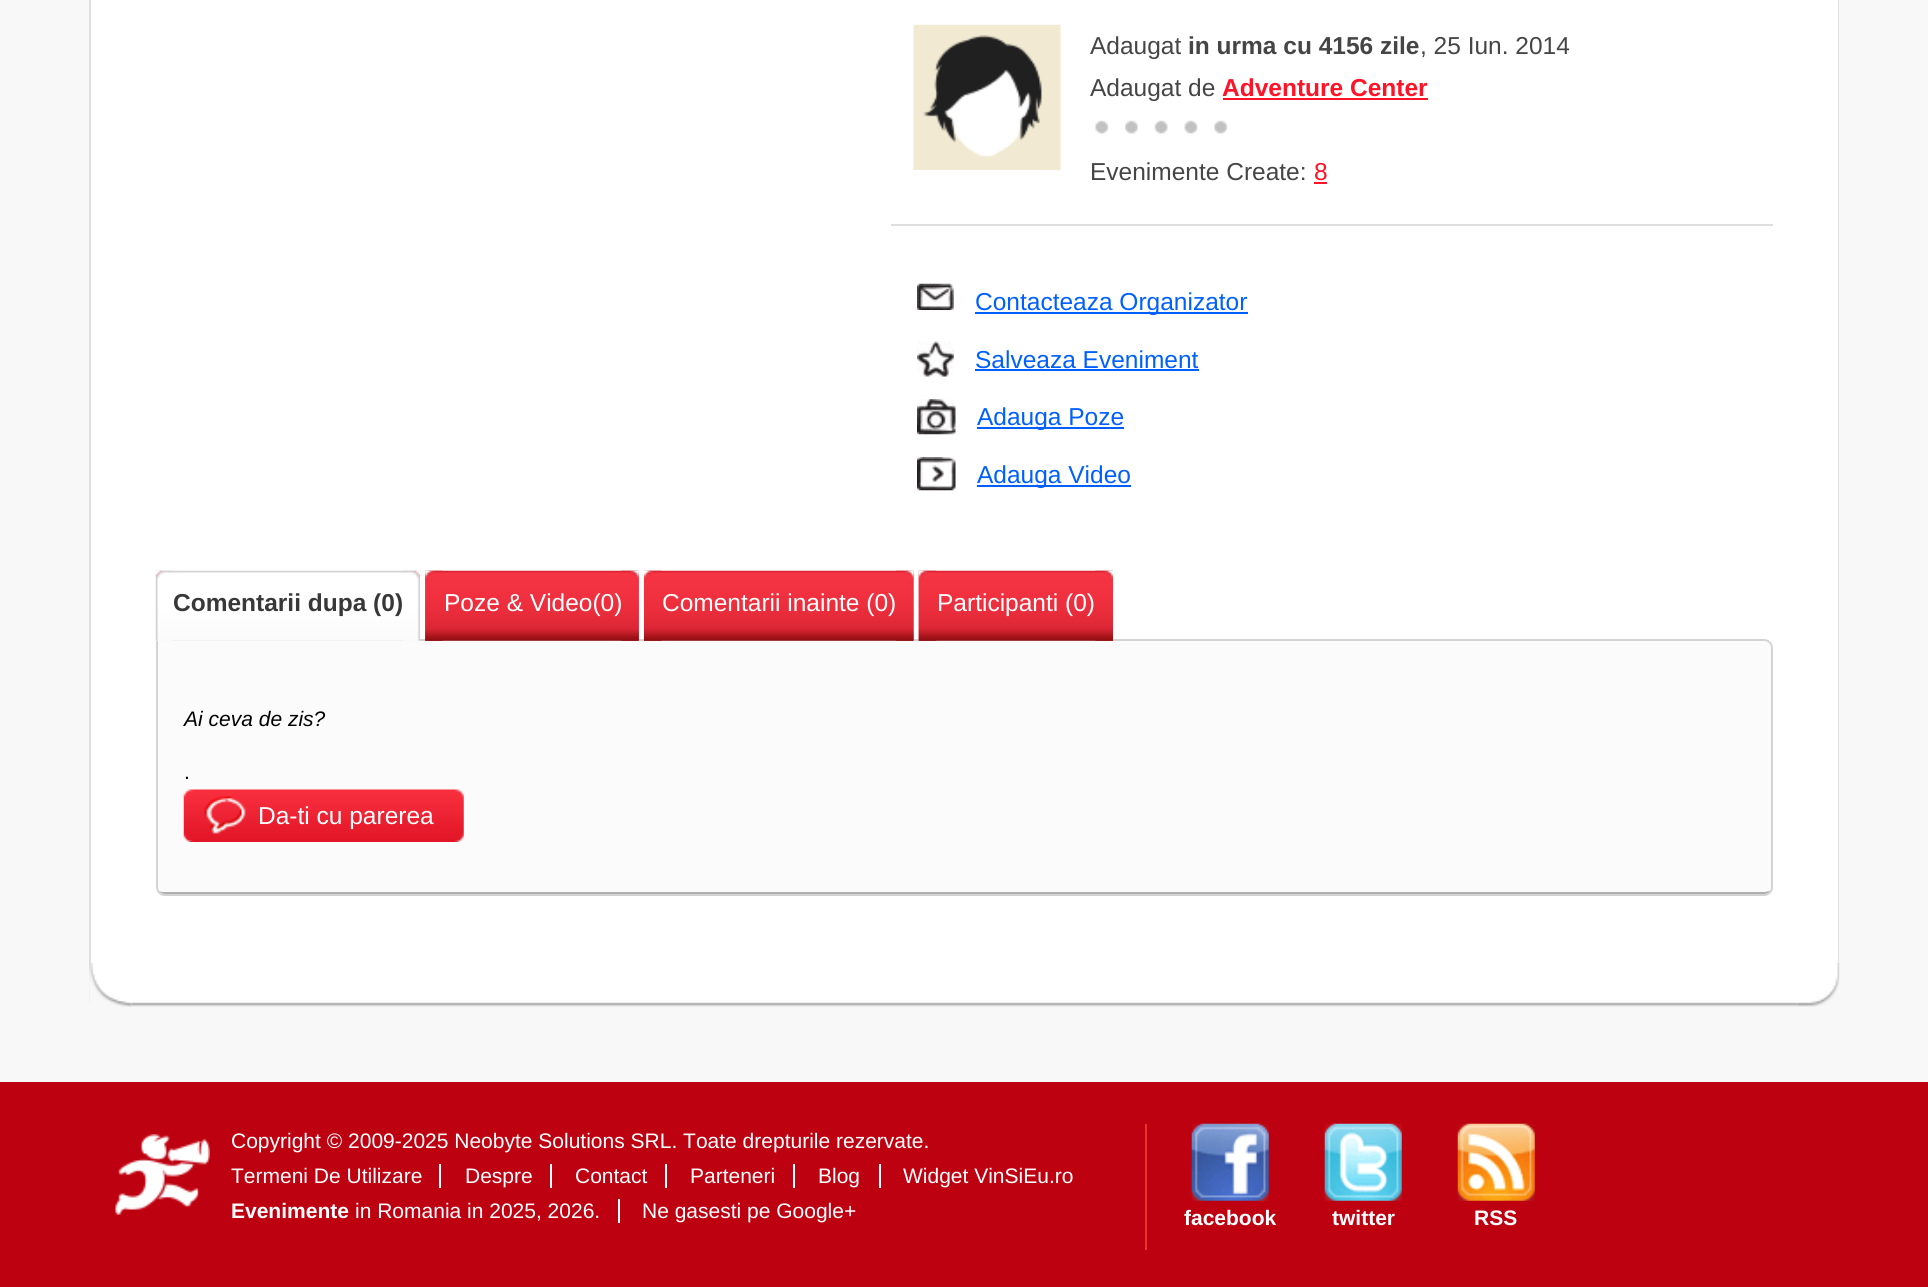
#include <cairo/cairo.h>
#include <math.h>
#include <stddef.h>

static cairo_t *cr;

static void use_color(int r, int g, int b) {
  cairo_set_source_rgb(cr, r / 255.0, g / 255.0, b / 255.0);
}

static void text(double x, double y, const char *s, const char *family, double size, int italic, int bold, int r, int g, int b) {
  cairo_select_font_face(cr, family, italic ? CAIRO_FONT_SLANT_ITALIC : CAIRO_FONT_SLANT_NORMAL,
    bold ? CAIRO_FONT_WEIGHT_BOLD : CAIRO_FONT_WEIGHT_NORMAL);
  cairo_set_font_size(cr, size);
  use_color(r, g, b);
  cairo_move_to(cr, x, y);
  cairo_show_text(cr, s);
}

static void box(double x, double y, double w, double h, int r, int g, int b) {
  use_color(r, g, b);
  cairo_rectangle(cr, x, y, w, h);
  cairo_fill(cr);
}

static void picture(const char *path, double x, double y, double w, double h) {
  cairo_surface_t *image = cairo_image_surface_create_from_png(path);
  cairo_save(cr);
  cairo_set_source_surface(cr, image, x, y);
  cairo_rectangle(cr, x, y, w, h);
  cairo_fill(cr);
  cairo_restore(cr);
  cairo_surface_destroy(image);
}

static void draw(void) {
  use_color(248, 248, 248);
  cairo_paint(cr);
  box(89, 0, 1749, 1005, 255, 255, 255);
  use_color(223, 223, 223);
  cairo_new_path(cr);
  cairo_move_to(cr, 1839, -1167);
  cairo_line_to(cr, 1839, 1004);
  cairo_line_to(cr, 1838, 1004);
  cairo_line_to(cr, 1838, -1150);
  cairo_close_path(cr);
  cairo_fill(cr);
  cairo_new_path(cr);
  cairo_move_to(cr, 89, 1004);
  cairo_line_to(cr, 89, -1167);
  cairo_line_to(cr, 91, -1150);
  cairo_line_to(cr, 91, 1004);
  cairo_close_path(cr);
  cairo_fill(cr);
  box(891, 224, 882, 2, 222, 222, 222);
  picture("img_01.png", 913, 24, 148, 146);
  box(1223, 98, 205, 2, 255, 19, 38);
  picture("img_02.png", 1095, 120, 14, 14);
  picture("img_03.png", 1125, 120, 13, 14);
  picture("img_04.png", 1154, 120, 14, 14);
  picture("img_05.png", 1184, 120, 14, 14);
  picture("img_02.png", 1214, 120, 14, 14);
  box(1314, 182, 13, 2, 255, 19, 38);
  picture("img_06.png", 917, 283, 37, 27);
  box(975, 312, 273, 2, 0, 95, 255);
  picture("img_07.png", 917, 341, 37, 36);
  box(975, 369, 224, 2, 0, 95, 255);
  picture("img_08.png", 917, 399, 39, 36);
  box(977, 427, 147, 2, 0, 95, 255);
  picture("img_09.png", 917, 457, 39, 34);
  box(977, 485, 154, 2, 0, 95, 255);
  use_color(251, 251, 251);
  cairo_new_path(cr);
  cairo_move_to(cr, 156, 639);
  cairo_line_to(cr, 1764, 639);
  cairo_curve_to(cr, 1769, 639, 1773, 643, 1773, 648);
  cairo_line_to(cr, 1773, 887);
  cairo_curve_to(cr, 1773, 892, 1769, 896, 1764, 896);
  cairo_line_to(cr, 165, 896);
  cairo_curve_to(cr, 160, 896, 156, 892, 156, 887);
  cairo_close_path(cr);
  cairo_fill(cr);
  use_color(175, 175, 175);
  cairo_new_path(cr);
  cairo_move_to(cr, 159, 891);
  cairo_curve_to(cr, 160, 893, 163, 894, 165, 894);
  cairo_line_to(cr, 1764, 894);
  cairo_curve_to(cr, 1767, 894, 1769, 893, 1770, 891);
  cairo_curve_to(cr, 1768, 891, 1766, 892, 1764, 892);
  cairo_line_to(cr, 164, 892);
  cairo_curve_to(cr, 162, 892, 161, 892, 159, 891);
  cairo_close_path(cr);
  cairo_fill(cr);
  cairo_new_path(cr);
  cairo_move_to(cr, 157, 640);
  cairo_line_to(cr, 1764, 640);
  cairo_curve_to(cr, 1768.5, 640, 1772, 643.5, 1772, 648);
  cairo_line_to(cr, 1772, 887);
  cairo_curve_to(cr, 1772, 891.5, 1768.5, 895, 1764, 895);
  cairo_line_to(cr, 165, 895);
  cairo_curve_to(cr, 160.5, 895, 157, 891.5, 157, 887);
  cairo_close_path(cr);
  use_color(211, 211, 211);
  cairo_stroke(cr);
  picture("img_10.png", 155, 570, 265, 71);
  picture("img_11.png", 155, 570, 18, 71);
  picture("img_12.png", 402, 570, 18, 71);
  picture("img_13.png", 425, 570, 214, 71);
  picture("img_14.png", 425, 570, 18, 71);
  picture("img_15.png", 621, 570, 18, 71);
  picture("img_16.png", 644, 570, 270, 71);
  picture("img_17.png", 644, 570, 18, 71);
  picture("img_18.png", 896, 570, 18, 71);
  picture("img_19.png", 918, 570, 195, 71);
  picture("img_20.png", 918, 570, 19, 71);
  picture("img_21.png", 1095, 570, 18, 71);
  picture("img_22.png", 183, 789, 281, 53);
  picture("img_23.png", 89, 962, 43, 45);
  picture("img_24.png", 131, 1002, 1667, 5);
  picture("img_25.png", 1797, 962, 43, 45);
  box(0, 1082, 1928, 205, 190, 1, 16);
  picture("img_26.png", 115, 1134, 95, 81);
  box(439, 1164, 2, 24, 255, 255, 255);
  box(550, 1164, 2, 24, 255, 255, 255);
  box(665, 1164, 2, 24, 255, 255, 255);
  box(793, 1164, 2, 24, 255, 255, 255);
  box(879, 1164, 2, 24, 255, 255, 255);
  box(618, 1199, 2, 24, 255, 255, 255);
  box(1145, 1124, 2, 126, 237, 49, 49);
  picture("img_27.png", 1191, 1123, 78, 78);
  picture("img_28.png", 1324, 1123, 78, 78);
  picture("img_29.png", 1457, 1123, 78, 78);
  text(1090, 54, "Adaugat", "Liberation Sans", 24.5, 0, 0, 69, 69, 69);
  text(1188, 54, "in urma cu 4156 zile", "Liberation Sans", 24.5, 0, 1, 69, 69, 69);
  text(1420, 54, ", 25 Iun. 2014", "Liberation Sans", 24.5, 0, 0, 69, 69, 69);
  text(1090, 96, "Adaugat de", "Liberation Sans", 24.5, 0, 0, 69, 69, 69);
  text(1222, 96, "Adventure Center", "Liberation Sans", 24.5, 0, 1, 255, 19, 38);
  text(1090, 180, "Evenimente Create:", "Liberation Sans", 24.5, 0, 0, 69, 69, 69);
  text(1314, 180, "8", "Liberation Sans", 24.5, 0, 0, 255, 19, 38);
  text(975, 310, "Contacteaza Organizator", "Liberation Sans", 24.5, 0, 0, 0, 95, 255);
  text(975, 368, "Salveaza Eveniment", "Liberation Sans", 24.5, 0, 0, 0, 95, 255);
  text(977, 425, "Adauga Poze", "Liberation Sans", 24.5, 0, 0, 0, 95, 255);
  text(977, 483, "Adauga Video", "Liberation Sans", 24.5, 0, 0, 0, 95, 255);
  text(173, 611, "Comentarii dupa (0)", "Liberation Sans", 24.5, 0, 1, 56, 56, 56);
  text(444, 611, "Poze & Video(0)", "Liberation Sans", 24.5, 0, 0, 255, 255, 255);
  text(662, 611, "Comentarii inainte (0)", "Liberation Sans", 24.5, 0, 0, 255, 255, 255);
  text(937, 611, "Participanti (0)", "Liberation Sans", 24.5, 0, 0, 255, 255, 255);
  text(184, 726, "Ai ceva de zis?", "Liberation Sans", 21, 1, 0, 3, 0, 0);
  text(184, 779, ".", "Liberation Sans", 21, 0, 0, 3, 0, 0);
  text(258, 824, "Da-ti cu parerea", "Liberation Sans", 24.5, 0, 0, 255, 255, 255);
  text(231, 1148, "Copyright © 2009-2025 Neobyte Solutions SRL. Toate drepturile rezervate.", "Liberation Sans", 21, 0, 0, 255, 255, 255);
  text(231, 1183, "Termeni De Utilizare", "Liberation Sans", 21, 0, 0, 255, 255, 255);
  text(465, 1183, "Despre", "Liberation Sans", 21, 0, 0, 255, 255, 255);
  text(575, 1183, "Contact", "Liberation Sans", 21, 0, 0, 255, 255, 255);
  text(690, 1183, "Parteneri", "Liberation Sans", 21, 0, 0, 255, 255, 255);
  text(818, 1183, "Blog", "Liberation Sans", 21, 0, 0, 255, 255, 255);
  text(903, 1183, "Widget VinSiEu.ro", "Liberation Sans", 21, 0, 0, 255, 255, 255);
  text(231, 1218, "Evenimente", "Liberation Sans", 21, 0, 1, 255, 255, 255);
  text(355, 1218, "in Romania in 2025, 2026.", "Liberation Sans", 21, 0, 0, 255, 255, 255);
  text(642, 1218, "Ne gasesti pe Google+", "Liberation Sans", 21, 0, 0, 255, 255, 255);
  text(1184, 1225, "facebook", "Liberation Sans", 21, 0, 1, 255, 255, 255);
  text(1332, 1225, "twitter", "Liberation Sans", 21, 0, 1, 255, 255, 255);
  text(1474, 1225, "RSS", "Liberation Sans", 21, 0, 1, 255, 255, 255);
}

int main(void) {
  cairo_surface_t *surface = cairo_image_surface_create(CAIRO_FORMAT_RGB24, 1928, 1287);
  cr = cairo_create(surface);
  cairo_font_options_t *options = cairo_font_options_create();
  cairo_font_options_set_hint_metrics(options, CAIRO_HINT_METRICS_OFF);
  cairo_font_options_set_hint_style(options, CAIRO_HINT_STYLE_NONE);
  cairo_set_font_options(cr, options);
  cairo_set_miter_limit(cr, 4);
  draw();
  cairo_surface_write_to_png(surface, "out.png");
  cairo_font_options_destroy(options);
  cairo_destroy(cr);
  cairo_surface_destroy(surface);
  return 0;
}
